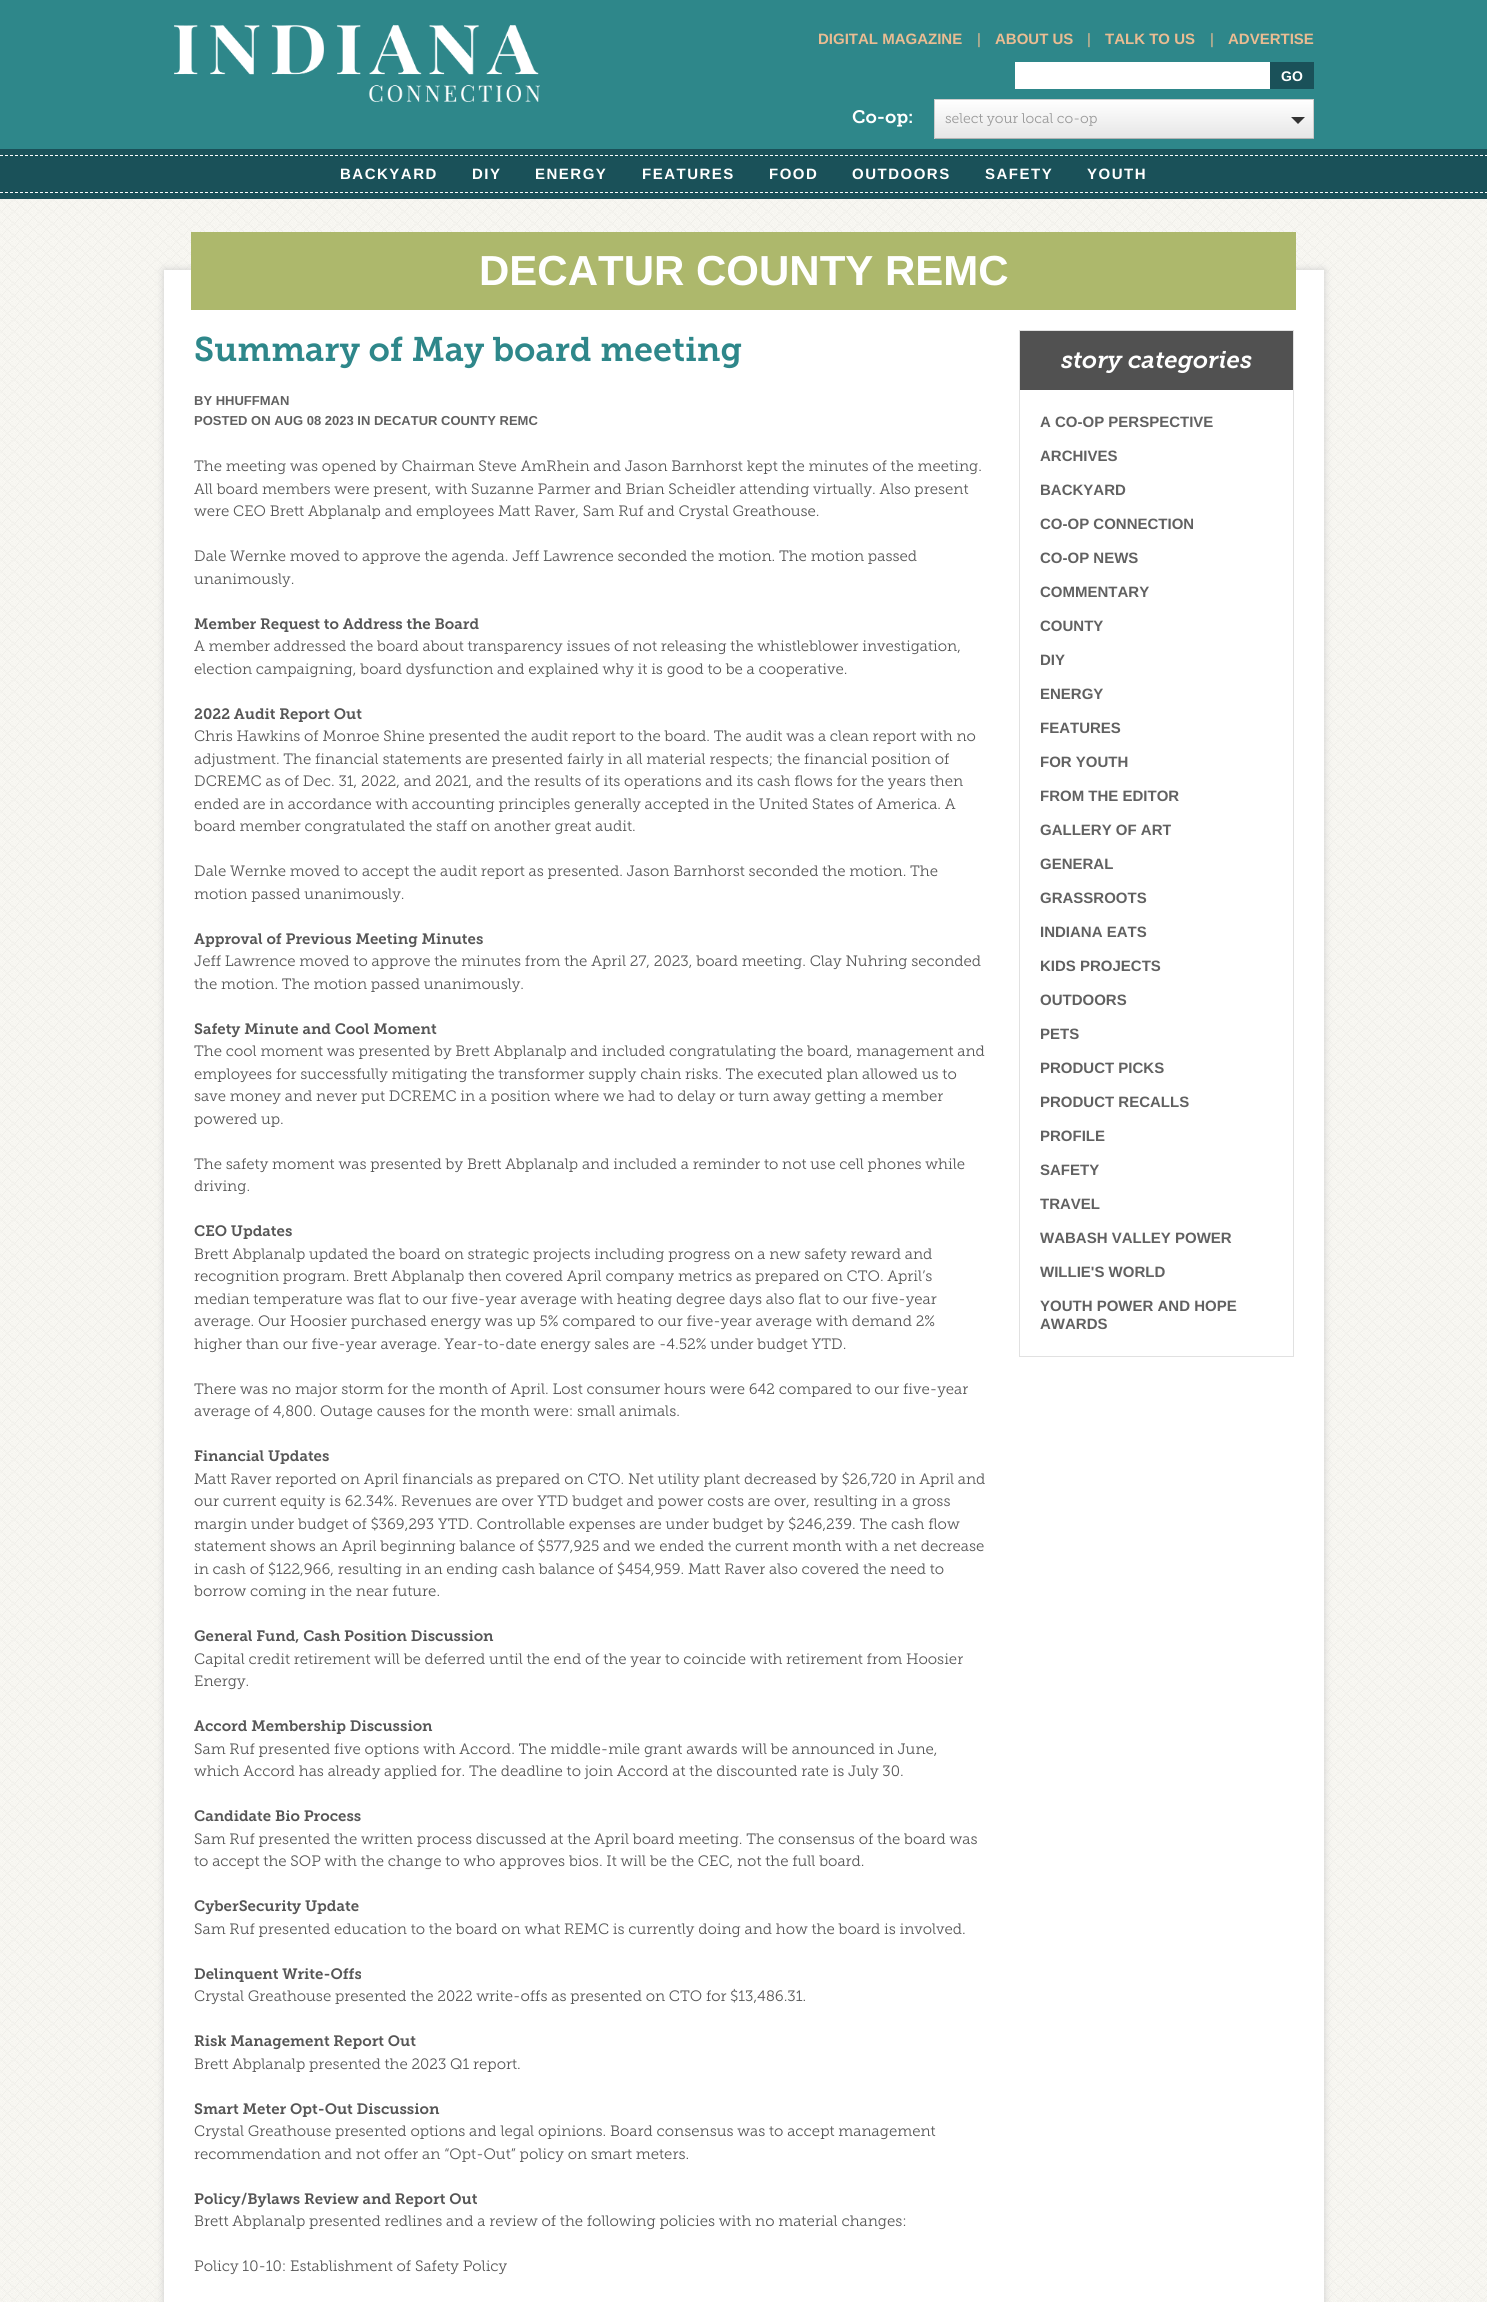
#include <cairo/cairo.h>
#include <math.h>
#include <stddef.h>

static cairo_t *cr;

static void use_color(int r, int g, int b) {
  cairo_set_source_rgb(cr, r / 255.0, g / 255.0, b / 255.0);
}

static void text(double x, double y, const char *s, const char *family, double size, int italic, int bold, int r, int g, int b) {
  cairo_select_font_face(cr, family, italic ? CAIRO_FONT_SLANT_ITALIC : CAIRO_FONT_SLANT_NORMAL,
    bold ? CAIRO_FONT_WEIGHT_BOLD : CAIRO_FONT_WEIGHT_NORMAL);
  cairo_set_font_size(cr, size);
  use_color(r, g, b);
  cairo_move_to(cr, x, y);
  cairo_show_text(cr, s);
}

static void spaced_text(double x, double y, const char *s, double letter, double word) {
  cairo_move_to(cr, x, y);
  while (*s) {
    char ch[5] = {0};
    int n = 0;
    do ch[n++] = *s++; while ((*s & 0xC0) == 0x80);
    cairo_show_text(cr, ch);
    cairo_rel_move_to(cr, letter + word * (*ch == ' '), 0);
  }
}

static void box(double x, double y, double w, double h, int r, int g, int b) {
  use_color(r, g, b);
  cairo_rectangle(cr, x, y, w, h);
  cairo_fill(cr);
}

static void round_rect(double x, double y, double w, double h, double r) {
  cairo_new_sub_path(cr);
  cairo_arc(cr, x + w - r, y + h - r, r, 0, M_PI / 2);
  cairo_arc(cr, x + r, y + h - r, r, M_PI / 2, M_PI);
  cairo_arc(cr, x + r, y + r, r, M_PI, 1.5 * M_PI);
  cairo_arc(cr, x + w - r, y + r, r, 1.5 * M_PI, 2 * M_PI);
  cairo_close_path(cr);
}

static void shadow(double x, double y, double w, double h, double r, double blur, double alpha) {
  cairo_push_group_with_content(cr, CAIRO_CONTENT_ALPHA);
  cairo_set_operator(cr, CAIRO_OPERATOR_SOURCE);
  for (int i = 15; i >= -15 && fmin(w, h) + blur * i / 3 > 0; i -= 2) {
    double e = blur * i / 6;
    cairo_set_source_rgba(cr, 0, 0, 0, alpha * erfc((i - 1) / 8.5) / 2);
    round_rect(x - e, y - e, w + 2 * e, h + 2 * e, fmax(0, fmin(r + e + blur * .6, fmin(w, h) / 2 + e)));
    cairo_fill(cr);
  }
  cairo_pattern_t *soft = cairo_pop_group(cr);
  cairo_mask(cr, soft);
  cairo_pattern_destroy(soft);
}

static void picture(const char *path, double x, double y, double w, double h) {
  cairo_surface_t *image = cairo_image_surface_create_from_png(path);
  cairo_save(cr);
  cairo_set_source_surface(cr, image, x, y);
  cairo_rectangle(cr, x, y, w, h);
  cairo_fill(cr);
  cairo_restore(cr);
  cairo_surface_destroy(image);
}

static void draw(void) {
  cairo_pattern_t *gradient;
  use_color(46, 135, 138);
  cairo_paint(cr);
  picture("img_01.png", 174, 25, 366, 77);
  box(1015, 62, 255, 27, 255, 255, 255);
  box(1270, 62, 44, 27, 26, 81, 89);
  gradient = cairo_pattern_create_linear(1124, 100, 1124, 138);
  cairo_pattern_add_color_stop_rgba(gradient, 0, 1, 1, 1, 1);
  cairo_pattern_add_color_stop_rgba(gradient, 1, 0.902, 0.902, 0.902, 1);
  cairo_set_source(cr, gradient);
  cairo_pattern_destroy(gradient);
  cairo_rectangle(cr, 935, 100, 378, 38);
  cairo_fill(cr);
  box(934, 99, 380, 1, 204, 204, 204);
  box(1313, 99, 1, 40, 204, 204, 204);
  box(934, 138, 380, 1, 179, 179, 179);
  box(934, 99, 1, 40, 204, 204, 204);
  use_color(51, 51, 51);
  cairo_new_path(cr);
  cairo_move_to(cr, 1291, 117);
  cairo_line_to(cr, 1305, 117);
  cairo_line_to(cr, 1298, 124);
  cairo_close_path(cr);
  cairo_fill(cr);
  box(0, 149, 1487, 50, 26, 81, 89);
  cairo_new_path(cr);
  cairo_move_to(cr, 0, 155.5);
  cairo_line_to(cr, 1487, 155.5);
  use_color(255, 255, 255);
  cairo_set_line_width(cr, 1);
  cairo_set_dash(cr, (double[]){3, 2}, 2, 0);
  cairo_stroke(cr);
  cairo_new_path(cr);
  cairo_move_to(cr, 0, 192.5);
  cairo_line_to(cr, 1487, 192.5);
  cairo_stroke(cr);
  picture("img_02.png", 0, 199, 1487, 2103);
  use_color(204, 204, 204);
  shadow(164, 270, 1160, 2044, 0, 4, 1);
  box(164, 270, 1160, 2032, 255, 255, 255);
  box(191, 232, 1105, 78, 173, 184, 108);
  cairo_rectangle(cr, 1019.5, 330.5, 274, 1026);
  use_color(225, 225, 225);
  cairo_set_dash(cr, NULL, 0, 0);
  cairo_stroke(cr);
  box(1020, 331, 273, 59, 81, 81, 81);
  text(818, 44, "DIGITAL MAGAZINE", "Liberation Sans", 15, 0, 1, 234, 188, 146);
  text(977, 44, "|", "Liberation Sans", 15, 0, 0, 234, 188, 146);
  text(995, 44, "ABOUT US", "Liberation Sans", 15, 0, 1, 234, 188, 146);
  text(1087, 44, "|", "Liberation Sans", 15, 0, 0, 234, 188, 146);
  text(1105, 44, "TALK TO US", "Liberation Sans", 15, 0, 1, 234, 188, 146);
  text(1210, 44, "|", "Liberation Sans", 15, 0, 0, 234, 188, 146);
  text(1228, 44, "ADVERTISE", "Liberation Sans", 15, 0, 1, 234, 188, 146);
  text(1281, 81, "GO", "Liberation Sans", 14, 0, 1, 255, 255, 255);
  text(852, 123, "Co-op:", "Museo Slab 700 SemiBold", 18, 0, 0, 255, 255, 255);
  text(945, 123, "select your local co-op", "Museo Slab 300 Light", 14, 0, 0, 153, 153, 153);
  cairo_select_font_face(cr, "Liberation Sans", CAIRO_FONT_SLANT_NORMAL, CAIRO_FONT_WEIGHT_BOLD);
  cairo_set_font_size(cr, 15);
  use_color(255, 255, 255);
  spaced_text(340, 179, "BACKYARD", 1.5, 0);
  spaced_text(472, 179, "DIY", 1.5, 0);
  spaced_text(535, 179, "ENERGY", 1.5, 0);
  spaced_text(642, 179, "FEATURES", 1.5, 0);
  spaced_text(769, 179, "FOOD", 1.5, 0);
  spaced_text(852, 179, "OUTDOORS", 1.5, 0);
  spaced_text(985, 179, "SAFETY", 1.5, 0);
  spaced_text(1087, 179, "YOUTH", 1.5, 0);
  text(479, 285, "DECATUR COUNTY REMC", "Liberation Sans", 42, 0, 1, 255, 255, 255);
  text(194, 361, "Summary of May board meeting", "Museo Slab 700 SemiBold", 34, 0, 0, 46, 135, 138);
  text(194, 405, "BY HHUFFMAN", "Liberation Sans", 13, 0, 1, 97, 97, 97);
  text(194, 425, "POSTED ON AUG 08 2023 IN DECATUR COUNTY REMC", "Liberation Sans", 13, 0, 1, 97, 97, 97);
  text(194, 471, "The meeting was opened by Chairman Steve AmRhein and Jason Barnhorst kept the minutes of the meeting.", "Museo Slab 300 Light", 15, 0, 0, 86, 86, 86);
  text(194, 494, "All board members were present, with Suzanne Parmer and Brian Scheidler attending virtually. Also present", "Museo Slab 300 Light", 15, 0, 0, 86, 86, 86);
  text(194, 516, "were CEO Brett Abplanalp and employees Matt Raver, Sam Ruf and Crystal Greathouse.", "Museo Slab 300 Light", 15, 0, 0, 86, 86, 86);
  text(194, 561, "Dale Wernke moved to approve the agenda. Jeff Lawrence seconded the motion. The motion passed", "Museo Slab 300 Light", 15, 0, 0, 86, 86, 86);
  text(194, 584, "unanimously.", "Museo Slab 300 Light", 15, 0, 0, 86, 86, 86);
  text(194, 629, "Member Request to Address the Board", "Museo Slab 700 SemiBold", 15, 0, 0, 86, 86, 86);
  text(194, 651, "A member addressed the board about transparency issues of not releasing the whistleblower investigation,", "Museo Slab 300 Light", 15, 0, 0, 86, 86, 86);
  text(194, 674, "election campaigning, board dysfunction and explained why it is good to be a cooperative.", "Museo Slab 300 Light", 15, 0, 0, 86, 86, 86);
  text(194, 719, "2022 Audit Report Out", "Museo Slab 700 SemiBold", 15, 0, 0, 86, 86, 86);
  text(194, 741, "Chris Hawkins of Monroe Shine presented the audit report to the board. The audit was a clean report with no", "Museo Slab 300 Light", 15, 0, 0, 86, 86, 86);
  text(194, 764, "adjustment. The financial statements are presented fairly in all material respects; the financial position of", "Museo Slab 300 Light", 15, 0, 0, 86, 86, 86);
  text(194, 786, "DCREMC as of Dec. 31, 2022, and 2021, and the results of its operations and its cash flows for the years then", "Museo Slab 300 Light", 15, 0, 0, 86, 86, 86);
  text(194, 809, "ended are in accordance with accounting principles generally accepted in the United States of America. A", "Museo Slab 300 Light", 15, 0, 0, 86, 86, 86);
  text(194, 831, "board member congratulated the staff on another great audit.", "Museo Slab 300 Light", 15, 0, 0, 86, 86, 86);
  text(194, 876, "Dale Wernke moved to accept the audit report as presented. Jason Barnhorst seconded the motion. The", "Museo Slab 300 Light", 15, 0, 0, 86, 86, 86);
  text(194, 899, "motion passed unanimously.", "Museo Slab 300 Light", 15, 0, 0, 86, 86, 86);
  text(194, 944, "Approval of Previous Meeting Minutes", "Museo Slab 700 SemiBold", 15, 0, 0, 86, 86, 86);
  text(194, 966, "Jeff Lawrence moved to approve the minutes from the April 27, 2023, board meeting. Clay Nuhring seconded", "Museo Slab 300 Light", 15, 0, 0, 86, 86, 86);
  text(194, 989, "the motion. The motion passed unanimously.", "Museo Slab 300 Light", 15, 0, 0, 86, 86, 86);
  text(194, 1034, "Safety Minute and Cool Moment", "Museo Slab 700 SemiBold", 15, 0, 0, 86, 86, 86);
  text(194, 1056, "The cool moment was presented by Brett Abplanalp and included congratulating the board, management and", "Museo Slab 300 Light", 15, 0, 0, 86, 86, 86);
  text(194, 1079, "employees for successfully mitigating the transformer supply chain risks. The executed plan allowed us to", "Museo Slab 300 Light", 15, 0, 0, 86, 86, 86);
  text(194, 1101, "save money and never put DCREMC in a position where we had to delay or turn away getting a member", "Museo Slab 300 Light", 15, 0, 0, 86, 86, 86);
  text(194, 1124, "powered up.", "Museo Slab 300 Light", 15, 0, 0, 86, 86, 86);
  text(194, 1169, "The safety moment was presented by Brett Abplanalp and included a reminder to not use cell phones while", "Museo Slab 300 Light", 15, 0, 0, 86, 86, 86);
  text(194, 1191, "driving.", "Museo Slab 300 Light", 15, 0, 0, 86, 86, 86);
  text(194, 1236, "CEO Updates", "Museo Slab 700 SemiBold", 15, 0, 0, 86, 86, 86);
  text(194, 1259, "Brett Abplanalp updated the board on strategic projects including progress on a new safety reward and", "Museo Slab 300 Light", 15, 0, 0, 86, 86, 86);
  text(194, 1281, "recognition program. Brett Abplanalp then covered April company metrics as prepared on CTO. April’s", "Museo Slab 300 Light", 15, 0, 0, 86, 86, 86);
  text(194, 1304, "median temperature was flat to our five-year average with heating degree days also flat to our five-year", "Museo Slab 300 Light", 15, 0, 0, 86, 86, 86);
  text(194, 1326, "average. Our Hoosier purchased energy was up 5% compared to our five-year average with demand 2%", "Museo Slab 300 Light", 15, 0, 0, 86, 86, 86);
  text(194, 1349, "higher than our five-year average. Year-to-date energy sales are -4.52% under budget YTD.", "Museo Slab 300 Light", 15, 0, 0, 86, 86, 86);
  text(194, 1394, "There was no major storm for the month of April. Lost consumer hours were 642 compared to our five-year", "Museo Slab 300 Light", 15, 0, 0, 86, 86, 86);
  text(194, 1416, "average of 4,800. Outage causes for the month were: small animals.", "Museo Slab 300 Light", 15, 0, 0, 86, 86, 86);
  text(194, 1461, "Financial Updates", "Museo Slab 700 SemiBold", 15, 0, 0, 86, 86, 86);
  text(194, 1484, "Matt Raver reported on April financials as prepared on CTO. Net utility plant decreased by $26,720 in April and", "Museo Slab 300 Light", 15, 0, 0, 86, 86, 86);
  text(194, 1506, "our current equity is 62.34%. Revenues are over YTD budget and power costs are over, resulting in a gross", "Museo Slab 300 Light", 15, 0, 0, 86, 86, 86);
  text(194, 1529, "margin under budget of $369,293 YTD. Controllable expenses are under budget by $246,239. The cash flow", "Museo Slab 300 Light", 15, 0, 0, 86, 86, 86);
  text(194, 1551, "statement shows an April beginning balance of $577,925 and we ended the current month with a net decrease", "Museo Slab 300 Light", 15, 0, 0, 86, 86, 86);
  text(194, 1574, "in cash of $122,966, resulting in an ending cash balance of $454,959. Matt Raver also covered the need to", "Museo Slab 300 Light", 15, 0, 0, 86, 86, 86);
  text(194, 1596, "borrow coming in the near future.", "Museo Slab 300 Light", 15, 0, 0, 86, 86, 86);
  text(194, 1641, "General Fund, Cash Position Discussion", "Museo Slab 700 SemiBold", 15, 0, 0, 86, 86, 86);
  text(194, 1664, "Capital credit retirement will be deferred until the end of the year to coincide with retirement from Hoosier", "Museo Slab 300 Light", 15, 0, 0, 86, 86, 86);
  text(194, 1686, "Energy.", "Museo Slab 300 Light", 15, 0, 0, 86, 86, 86);
  text(194, 1731, "Accord Membership Discussion", "Museo Slab 700 SemiBold", 15, 0, 0, 86, 86, 86);
  text(194, 1754, "Sam Ruf presented five options with Accord. The middle-mile grant awards will be announced in June,", "Museo Slab 300 Light", 15, 0, 0, 86, 86, 86);
  text(194, 1776, "which Accord has already applied for. The deadline to join Accord at the discounted rate is July 30.", "Museo Slab 300 Light", 15, 0, 0, 86, 86, 86);
  text(194, 1821, "Candidate Bio Process", "Museo Slab 700 SemiBold", 15, 0, 0, 86, 86, 86);
  text(194, 1844, "Sam Ruf presented the written process discussed at the April board meeting. The consensus of the board was", "Museo Slab 300 Light", 15, 0, 0, 86, 86, 86);
  text(194, 1866, "to accept the SOP with the change to who approves bios. It will be the CEC, not the full board.", "Museo Slab 300 Light", 15, 0, 0, 86, 86, 86);
  text(194, 1911, "CyberSecurity Update", "Museo Slab 700 SemiBold", 15, 0, 0, 86, 86, 86);
  text(194, 1934, "Sam Ruf presented education to the board on what REMC is currently doing and how the board is involved.", "Museo Slab 300 Light", 15, 0, 0, 86, 86, 86);
  text(194, 1979, "Delinquent Write-Offs", "Museo Slab 700 SemiBold", 15, 0, 0, 86, 86, 86);
  text(194, 2001, "Crystal Greathouse presented the 2022 write-offs as presented on CTO for $13,486.31.", "Museo Slab 300 Light", 15, 0, 0, 86, 86, 86);
  text(194, 2046, "Risk Management Report Out", "Museo Slab 700 SemiBold", 15, 0, 0, 86, 86, 86);
  text(194, 2069, "Brett Abplanalp presented the 2023 Q1 report.", "Museo Slab 300 Light", 15, 0, 0, 86, 86, 86);
  text(194, 2114, "Smart Meter Opt-Out Discussion", "Museo Slab 700 SemiBold", 15, 0, 0, 86, 86, 86);
  text(194, 2136, "Crystal Greathouse presented options and legal opinions. Board consensus was to accept management", "Museo Slab 300 Light", 15, 0, 0, 86, 86, 86);
  text(194, 2159, "recommendation and not offer an “Opt-Out” policy on smart meters.", "Museo Slab 300 Light", 15, 0, 0, 86, 86, 86);
  text(194, 2204, "Policy/Bylaws Review and Report Out", "Museo Slab 700 SemiBold", 15, 0, 0, 86, 86, 86);
  text(194, 2226, "Brett Abplanalp presented redlines and a review of the following policies with no material changes:", "Museo Slab 300 Light", 15, 0, 0, 86, 86, 86);
  text(194, 2271, "Policy 10-10: Establishment of Safety Policy", "Museo Slab 300 Light", 15, 0, 0, 86, 86, 86);
  text(1061, 368, "story categories", "Museo Slab 700 SemiBold", 24, 1, 0, 255, 255, 255);
  text(1040, 427, "A CO-OP PERSPECTIVE", "Liberation Sans", 15, 0, 1, 97, 97, 97);
  text(1040, 461, "ARCHIVES", "Liberation Sans", 15, 0, 1, 97, 97, 97);
  text(1040, 495, "BACKYARD", "Liberation Sans", 15, 0, 1, 97, 97, 97);
  text(1040, 529, "CO-OP CONNECTION", "Liberation Sans", 15, 0, 1, 97, 97, 97);
  text(1040, 563, "CO-OP NEWS", "Liberation Sans", 15, 0, 1, 97, 97, 97);
  text(1040, 597, "COMMENTARY", "Liberation Sans", 15, 0, 1, 97, 97, 97);
  text(1040, 631, "COUNTY", "Liberation Sans", 15, 0, 1, 97, 97, 97);
  text(1040, 665, "DIY", "Liberation Sans", 15, 0, 1, 97, 97, 97);
  text(1040, 699, "ENERGY", "Liberation Sans", 15, 0, 1, 97, 97, 97);
  text(1040, 733, "FEATURES", "Liberation Sans", 15, 0, 1, 97, 97, 97);
  text(1040, 767, "FOR YOUTH", "Liberation Sans", 15, 0, 1, 97, 97, 97);
  text(1040, 801, "FROM THE EDITOR", "Liberation Sans", 15, 0, 1, 97, 97, 97);
  text(1040, 835, "GALLERY OF ART", "Liberation Sans", 15, 0, 1, 97, 97, 97);
  text(1040, 869, "GENERAL", "Liberation Sans", 15, 0, 1, 97, 97, 97);
  text(1040, 903, "GRASSROOTS", "Liberation Sans", 15, 0, 1, 97, 97, 97);
  text(1040, 937, "INDIANA EATS", "Liberation Sans", 15, 0, 1, 97, 97, 97);
  text(1040, 971, "KIDS PROJECTS", "Liberation Sans", 15, 0, 1, 97, 97, 97);
  text(1040, 1005, "OUTDOORS", "Liberation Sans", 15, 0, 1, 97, 97, 97);
  text(1040, 1039, "PETS", "Liberation Sans", 15, 0, 1, 97, 97, 97);
  text(1040, 1073, "PRODUCT PICKS", "Liberation Sans", 15, 0, 1, 97, 97, 97);
  text(1040, 1107, "PRODUCT RECALLS", "Liberation Sans", 15, 0, 1, 97, 97, 97);
  text(1040, 1141, "PROFILE", "Liberation Sans", 15, 0, 1, 97, 97, 97);
  text(1040, 1175, "SAFETY", "Liberation Sans", 15, 0, 1, 97, 97, 97);
  text(1040, 1209, "TRAVEL", "Liberation Sans", 15, 0, 1, 97, 97, 97);
  text(1040, 1243, "WABASH VALLEY POWER", "Liberation Sans", 15, 0, 1, 97, 97, 97);
  text(1040, 1277, "WILLIE'S WORLD", "Liberation Sans", 15, 0, 1, 97, 97, 97);
  text(1040, 1311, "YOUTH POWER AND HOPE", "Liberation Sans", 15, 0, 1, 97, 97, 97);
  text(1040, 1329, "AWARDS", "Liberation Sans", 15, 0, 1, 97, 97, 97);
}

int main(void) {
  cairo_surface_t *surface = cairo_image_surface_create(CAIRO_FORMAT_RGB24, 1487, 2302);
  cr = cairo_create(surface);
  cairo_font_options_t *options = cairo_font_options_create();
  cairo_font_options_set_hint_metrics(options, CAIRO_HINT_METRICS_OFF);
  cairo_font_options_set_hint_style(options, CAIRO_HINT_STYLE_NONE);
  cairo_set_font_options(cr, options);
  cairo_set_miter_limit(cr, 4);
  draw();
  cairo_surface_write_to_png(surface, "out.png");
  cairo_font_options_destroy(options);
  cairo_destroy(cr);
  cairo_surface_destroy(surface);
  return 0;
}
